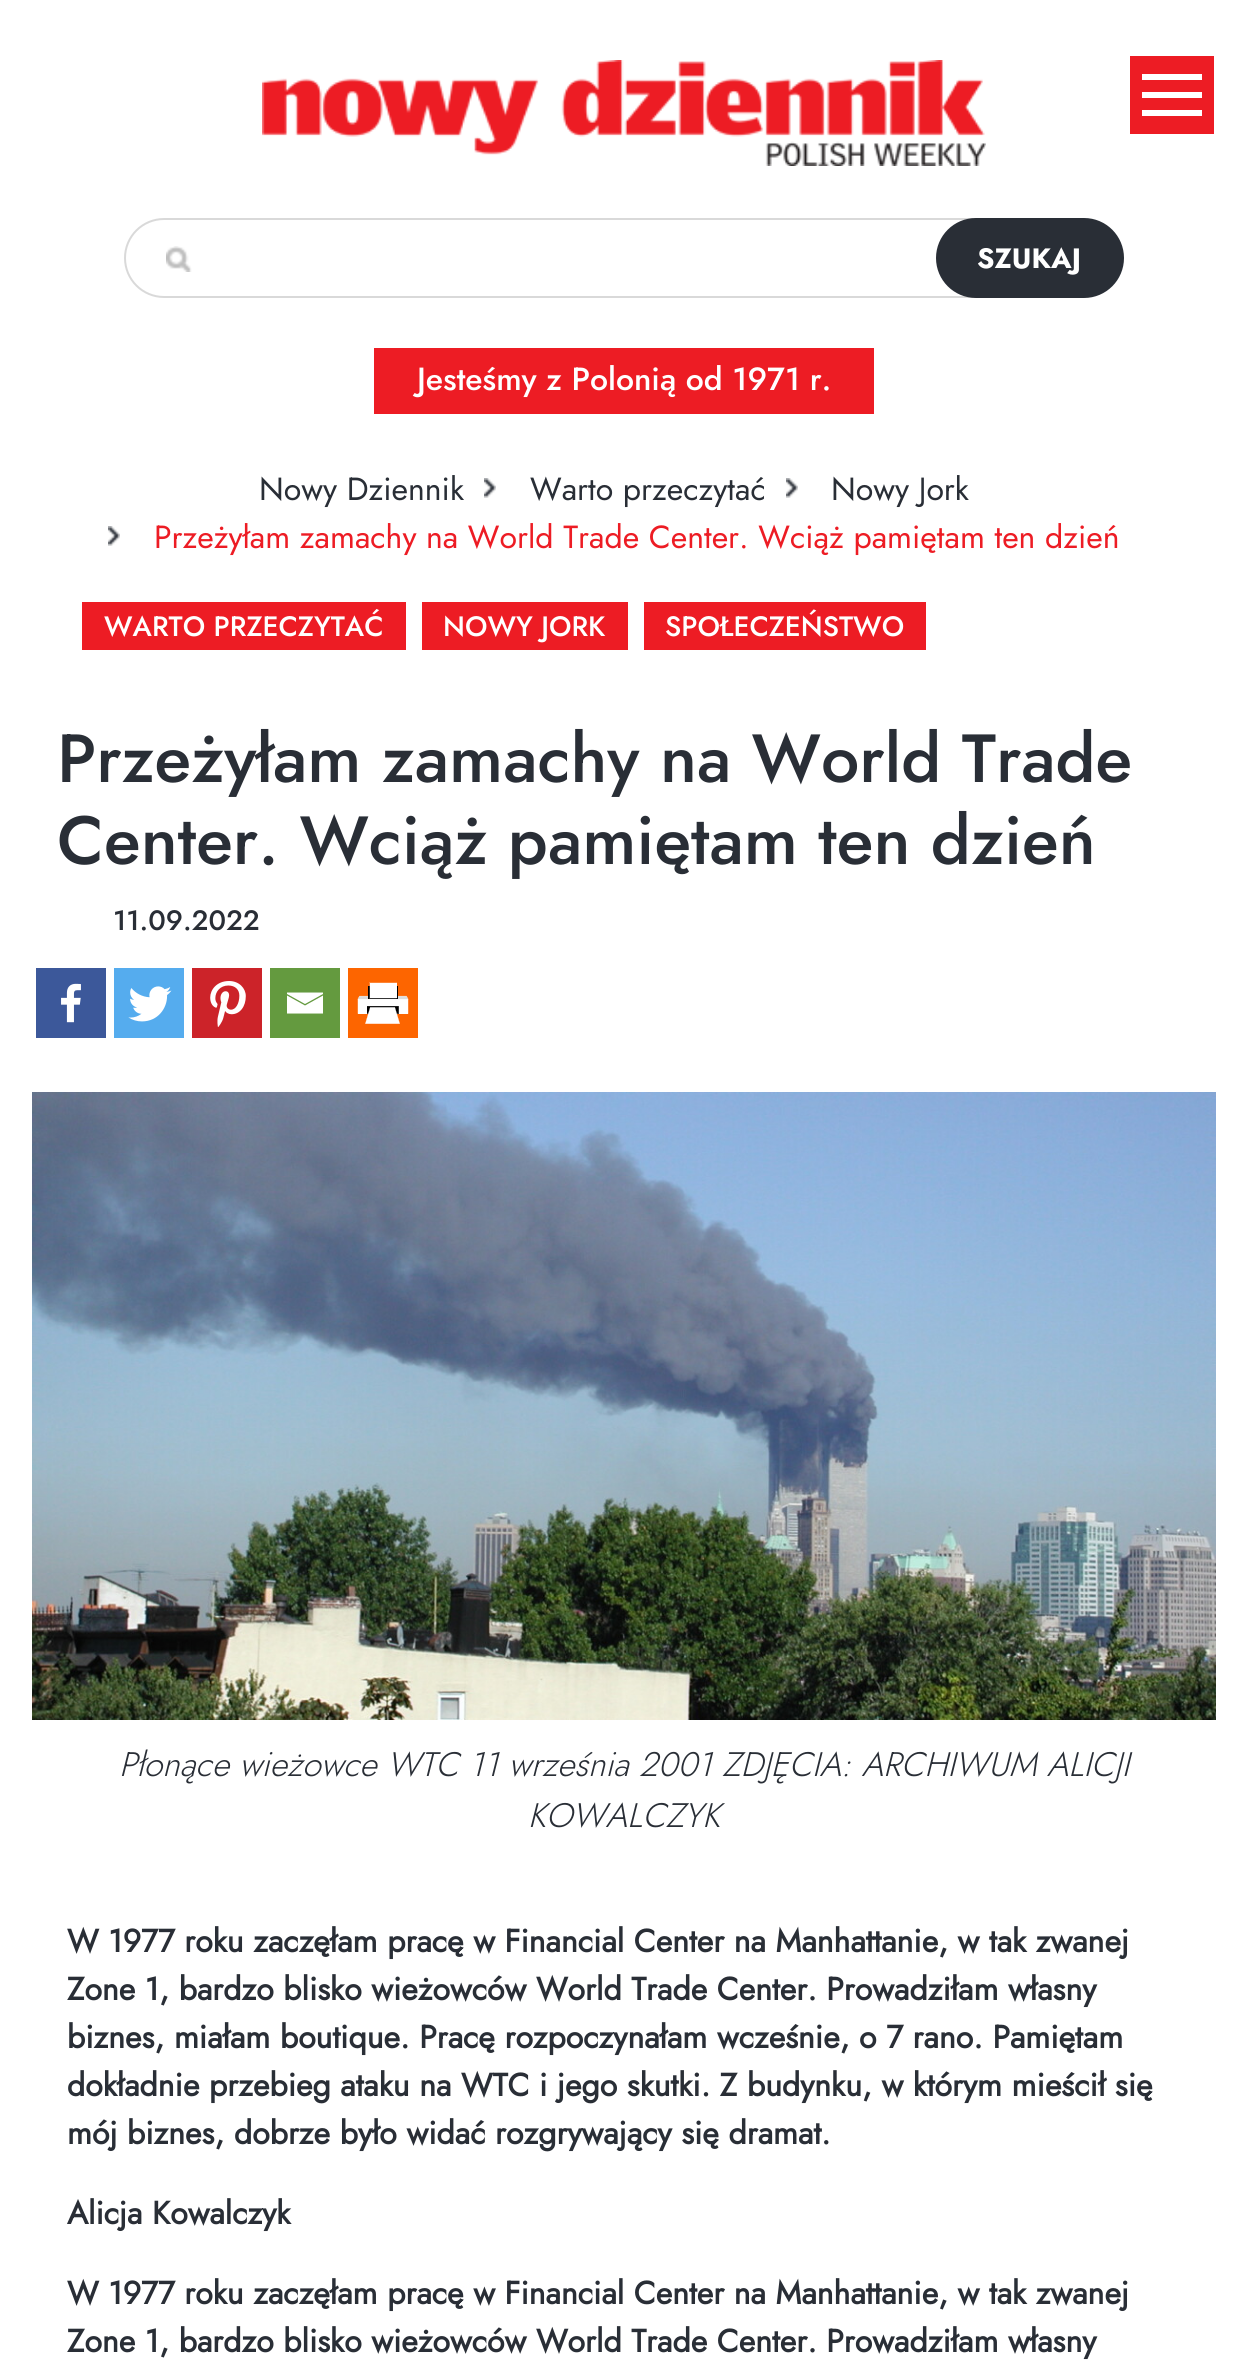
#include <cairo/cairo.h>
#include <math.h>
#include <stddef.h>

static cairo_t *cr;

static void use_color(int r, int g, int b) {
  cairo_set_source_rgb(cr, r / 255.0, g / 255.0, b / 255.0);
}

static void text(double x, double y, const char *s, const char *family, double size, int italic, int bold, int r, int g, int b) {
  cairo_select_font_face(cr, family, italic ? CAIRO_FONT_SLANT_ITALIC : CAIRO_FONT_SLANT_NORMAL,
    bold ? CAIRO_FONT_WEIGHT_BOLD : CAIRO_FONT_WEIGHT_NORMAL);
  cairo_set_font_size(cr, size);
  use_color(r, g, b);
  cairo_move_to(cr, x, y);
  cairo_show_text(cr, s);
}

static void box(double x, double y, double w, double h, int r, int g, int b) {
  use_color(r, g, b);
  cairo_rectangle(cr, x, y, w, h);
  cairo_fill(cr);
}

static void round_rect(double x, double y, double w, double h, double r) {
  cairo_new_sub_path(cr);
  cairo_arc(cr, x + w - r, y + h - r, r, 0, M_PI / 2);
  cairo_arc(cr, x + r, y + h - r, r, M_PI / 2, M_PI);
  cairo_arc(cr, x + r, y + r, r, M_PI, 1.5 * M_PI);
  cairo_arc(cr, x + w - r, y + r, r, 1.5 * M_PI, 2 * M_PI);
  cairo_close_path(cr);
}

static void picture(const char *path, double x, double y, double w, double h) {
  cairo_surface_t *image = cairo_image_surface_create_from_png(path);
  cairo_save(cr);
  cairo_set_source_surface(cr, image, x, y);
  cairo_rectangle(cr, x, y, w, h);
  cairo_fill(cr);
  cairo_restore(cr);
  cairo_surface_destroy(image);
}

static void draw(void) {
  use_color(255, 255, 255);
  cairo_paint(cr);
  picture("img_01.png", 262, 60, 724, 106);
  box(1130, 56, 84, 78, 237, 28, 36);
  box(1142, 74, 60, 6, 255, 255, 255);
  box(1142, 92, 60, 6, 255, 255, 255);
  box(1142, 110, 60, 6, 255, 255, 255);
  picture("img_02.png", 166, 246, 26, 26);
  round_rect(125, 219, 946, 78, 39);
  use_color(217, 217, 217);
  cairo_stroke(cr);
  use_color(41, 46, 54);
  round_rect(937, 219, 186, 78, 39);
  cairo_fill_preserve(cr);
  cairo_stroke(cr);
  box(374, 348, 500, 66, 237, 28, 36);
  picture("img_03.png", 484, 478, 12, 20);
  picture("img_03.png", 786, 478, 12, 20);
  picture("img_03.png", 108, 526, 12, 20);
  box(82, 602, 324, 48, 237, 28, 36);
  box(422, 602, 206, 48, 237, 28, 36);
  box(644, 602, 282, 48, 237, 28, 36);
  box(36, 968, 70, 70, 60, 88, 154);
  picture("img_04.png", 61, 983, 20, 40);
  box(114, 968, 70, 70, 85, 172, 238);
  picture("img_05.png", 128, 986, 44, 36);
  box(192, 968, 70, 70, 204, 35, 41);
  picture("img_06.png", 210, 981, 36, 46);
  box(270, 968, 70, 70, 100, 154, 63);
  use_color(255, 255, 255);
  cairo_new_path(cr);
  cairo_move_to(cr, 285.5, 992.5);
  cairo_line_to(cr, 323, 992.5);
  cairo_line_to(cr, 323, 994);
  cairo_line_to(cr, 305, 1004);
  cairo_line_to(cr, 287, 994);
  cairo_line_to(cr, 287, 992.5);
  cairo_move_to(cr, 287, 995.5);
  cairo_line_to(cr, 305, 1005.5);
  cairo_line_to(cr, 323, 995.5);
  cairo_line_to(cr, 323, 1013.5);
  cairo_line_to(cr, 287, 1013.5);
  cairo_line_to(cr, 287, 995.5);
  cairo_fill(cr);
  box(348, 968, 70, 70, 253, 101, 0);
  picture("img_07.png", 357, 982, 52, 42);
  picture("img_08.png", 32, 1092, 1184, 628);
  text(977, 268, "SZUKAJ", "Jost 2", 28, 0, 1, 255, 255, 255);
  text(417, 390, "Jesteśmy z Polonią od 1971 r.", "Jost Medium", 32, 0, 0, 255, 255, 255);
  text(259, 500, "Nowy Dziennik", "Jost", 32, 0, 0, 41, 46, 54);
  text(530, 500, "Warto przeczytać", "Jost", 32, 0, 0, 41, 46, 54);
  text(831, 500, "Nowy Jork", "Jost", 32, 0, 0, 41, 46, 54);
  text(154, 548, "Przeżyłam zamachy na World Trade Center. Wciąż pamiętam ten dzień", "Jost", 32, 0, 0, 237, 28, 36);
  text(104, 636, "WARTO PRZECZYTAĆ", "Jost Medium", 28, 0, 0, 255, 255, 255);
  text(443, 636, "NOWY JORK", "Jost Medium", 28, 0, 0, 255, 255, 255);
  text(665, 636, "SPOŁECZEŃSTWO", "Jost Medium", 28, 0, 0, 255, 255, 255);
  text(57, 782, "Przeżyłam zamachy na World Trade", "Jost Medium", 68, 0, 0, 41, 46, 54);
  text(57, 864, "Center. Wciąż pamiętam ten dzień", "Jost Medium", 68, 0, 0, 41, 46, 54);
  text(113, 930, "11.09.2022", "Jost Medium", 28, 0, 0, 41, 46, 54);
  text(119, 1776, "Płonące wieżowce WTC 11 września 2001 ZDJĘCIA: ARCHIWUM ALICJI", "Jost Light", 34, 1, 0, 41, 46, 54);
  text(528, 1827, "KOWALCZYK", "Jost Light", 34, 1, 0, 41, 46, 54);
  text(67, 1952, "W 1977 roku zaczęłam pracę w Financial Center na Manhattanie, w tak zwanej", "Jost", 32, 0, 1, 41, 46, 54);
  text(67, 2000, "Zone 1, bardzo blisko wieżowców World Trade Center. Prowadziłam własny", "Jost", 32, 0, 1, 41, 46, 54);
  text(67, 2048, "biznes, miałam boutique. Pracę rozpoczynałam wcześnie, o 7 rano. Pamiętam", "Jost", 32, 0, 1, 41, 46, 54);
  text(67, 2096, "dokładnie przebieg ataku na WTC i jego skutki. Z budynku, w którym mieścił się", "Jost", 32, 0, 1, 41, 46, 54);
  text(67, 2144, "mój biznes, dobrze było widać rozgrywający się dramat.", "Jost", 32, 0, 1, 41, 46, 54);
  text(67, 2224, "Alicja Kowalczyk", "Jost", 32, 0, 1, 41, 46, 54);
  text(67, 2304, "W 1977 roku zaczęłam pracę w Financial Center na Manhattanie, w tak zwanej", "Jost", 32, 0, 1, 41, 46, 54);
  text(67, 2352, "Zone 1, bardzo blisko wieżowców World Trade Center. Prowadziłam własny", "Jost", 32, 0, 1, 41, 46, 54);
}

int main(void) {
  cairo_surface_t *surface = cairo_image_surface_create(CAIRO_FORMAT_RGB24, 1247, 2380);
  cr = cairo_create(surface);
  cairo_font_options_t *options = cairo_font_options_create();
  cairo_font_options_set_hint_metrics(options, CAIRO_HINT_METRICS_OFF);
  cairo_font_options_set_hint_style(options, CAIRO_HINT_STYLE_NONE);
  cairo_set_font_options(cr, options);
  cairo_set_miter_limit(cr, 4);
  draw();
  cairo_surface_write_to_png(surface, "out.png");
  cairo_font_options_destroy(options);
  cairo_destroy(cr);
  cairo_surface_destroy(surface);
  return 0;
}
